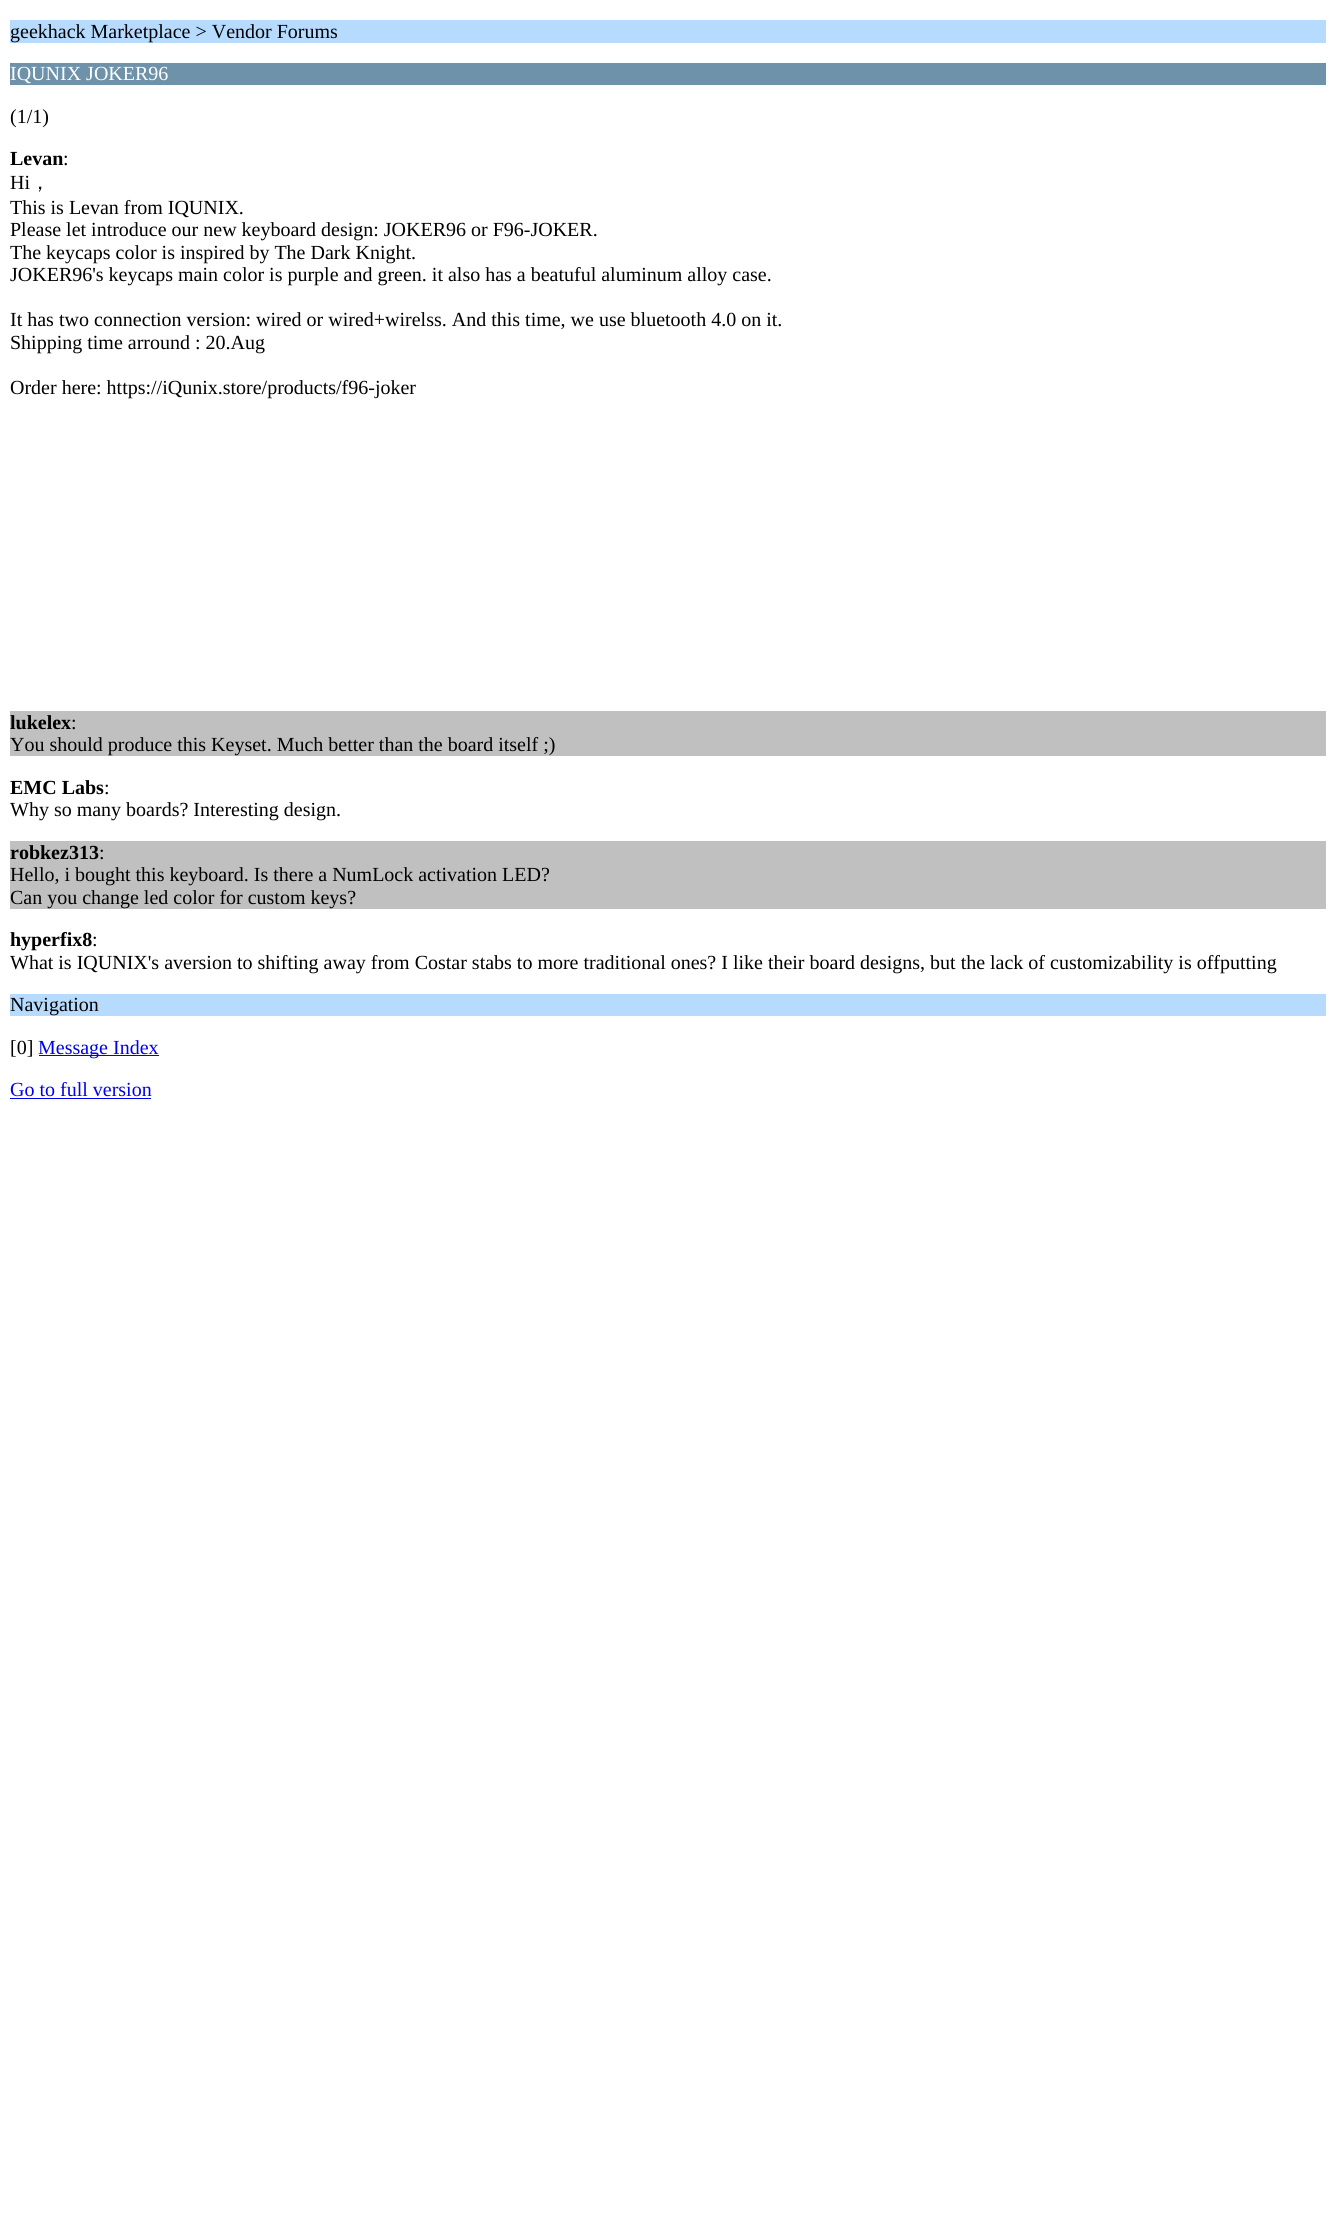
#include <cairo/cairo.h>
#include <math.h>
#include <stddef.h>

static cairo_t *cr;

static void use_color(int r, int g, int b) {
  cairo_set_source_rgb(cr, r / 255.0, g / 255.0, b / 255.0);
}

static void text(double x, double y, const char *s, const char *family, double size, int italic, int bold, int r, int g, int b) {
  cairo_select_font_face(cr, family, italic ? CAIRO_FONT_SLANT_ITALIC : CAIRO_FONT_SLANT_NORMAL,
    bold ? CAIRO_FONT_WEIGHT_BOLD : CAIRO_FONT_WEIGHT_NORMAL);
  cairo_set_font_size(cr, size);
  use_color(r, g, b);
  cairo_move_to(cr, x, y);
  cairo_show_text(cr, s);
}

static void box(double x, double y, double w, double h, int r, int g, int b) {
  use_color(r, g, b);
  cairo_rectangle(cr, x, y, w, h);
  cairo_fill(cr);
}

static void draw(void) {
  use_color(255, 255, 255);
  cairo_paint(cr);
  box(10, 20, 1316, 23, 182, 219, 255);
  box(10, 63, 1316, 22, 109, 146, 170);
  box(10, 711, 1316, 45, 192, 192, 192);
  box(10, 841, 1316, 68, 192, 192, 192);
  box(10, 994, 1316, 22, 182, 219, 255);
  box(39, 1055, 120, 1, 0, 0, 238);
  box(10, 1098, 141, 1, 0, 0, 238);
  text(10, 38, "geekhack Marketplace > Vendor Forums", "Liberation Serif", 20, 0, 0, 0, 0, 0);
  text(10, 80, "IQUNIX JOKER96", "Liberation Serif", 20, 0, 0, 255, 255, 255);
  text(10, 123, "(1/1)", "Liberation Serif", 20, 0, 0, 0, 0, 0);
  text(10, 165, "Levan", "Liberation Serif", 20, 0, 1, 0, 0, 0);
  text(63, 165, ":", "Liberation Serif", 20, 0, 0, 0, 0, 0);
  text(10, 189, "Hi", "Liberation Serif", 20, 0, 0, 0, 0, 0);
  text(30, 189, "，", "WenQuanYi Zen Hei Medium", 20, 0, 0, 0, 0, 0);
  text(10, 214, "This is Levan from IQUNIX.", "Liberation Serif", 20, 0, 0, 0, 0, 0);
  text(10, 236, "Please let introduce our new keyboard design: JOKER96 or F96-JOKER.", "Liberation Serif", 20, 0, 0, 0, 0, 0);
  text(10, 259, "The keycaps color is inspired by The Dark Knight.", "Liberation Serif", 20, 0, 0, 0, 0, 0);
  text(10, 281, "JOKER96's keycaps main color is purple and green. it also has a beatuful aluminum alloy case.", "Liberation Serif", 20, 0, 0, 0, 0, 0);
  text(10, 326, "It has two connection version: wired or wired+wirelss. And this time, we use bluetooth 4.0 on it.", "Liberation Serif", 20, 0, 0, 0, 0, 0);
  text(10, 349, "Shipping time arround : 20.Aug", "Liberation Serif", 20, 0, 0, 0, 0, 0);
  text(10, 394, "Order here: https://iQunix.store/products/f96-joker", "Liberation Serif", 20, 0, 0, 0, 0, 0);
  text(10, 729, "lukelex", "Liberation Serif", 20, 0, 1, 0, 0, 0);
  text(71, 729, ":", "Liberation Serif", 20, 0, 0, 0, 0, 0);
  text(10, 751, "You should produce this Keyset. Much better than the board itself ;)", "Liberation Serif", 20, 0, 0, 0, 0, 0);
  text(10, 794, "EMC Labs", "Liberation Serif", 20, 0, 1, 0, 0, 0);
  text(104, 794, ":", "Liberation Serif", 20, 0, 0, 0, 0, 0);
  text(10, 816, "Why so many boards? Interesting design.", "Liberation Serif", 20, 0, 0, 0, 0, 0);
  text(10, 859, "robkez313", "Liberation Serif", 20, 0, 1, 0, 0, 0);
  text(99, 859, ":", "Liberation Serif", 20, 0, 0, 0, 0, 0);
  text(10, 881, "Hello, i bought this keyboard. Is there a NumLock activation LED?", "Liberation Serif", 20, 0, 0, 0, 0, 0);
  text(10, 904, "Can you change led color for custom keys?", "Liberation Serif", 20, 0, 0, 0, 0, 0);
  text(10, 946, "hyperfix8", "Liberation Serif", 20, 0, 1, 0, 0, 0);
  text(92, 946, ":", "Liberation Serif", 20, 0, 0, 0, 0, 0);
  text(10, 969, "What is IQUNIX's aversion to shifting away from Costar stabs to more traditional ones? I like their board designs, but the lack of customizability is offputting", "Liberation Serif", 20, 0, 0, 0, 0, 0);
  text(10, 1011, "Navigation", "Liberation Serif", 20, 0, 0, 0, 0, 0);
  text(10, 1054, "[0]", "Liberation Serif", 20, 0, 0, 0, 0, 0);
  text(38, 1054, "Message Index", "Liberation Serif", 20, 0, 0, 0, 0, 238);
  text(10, 1096, "Go to full version", "Liberation Serif", 20, 0, 0, 0, 0, 238);
}

int main(void) {
  cairo_surface_t *surface = cairo_image_surface_create(CAIRO_FORMAT_RGB24, 1336, 2238);
  cr = cairo_create(surface);
  cairo_font_options_t *options = cairo_font_options_create();
  cairo_font_options_set_hint_metrics(options, CAIRO_HINT_METRICS_OFF);
  cairo_font_options_set_hint_style(options, CAIRO_HINT_STYLE_NONE);
  cairo_set_font_options(cr, options);
  cairo_set_miter_limit(cr, 4);
  draw();
  cairo_surface_write_to_png(surface, "out.png");
  cairo_font_options_destroy(options);
  cairo_destroy(cr);
  cairo_surface_destroy(surface);
  return 0;
}
